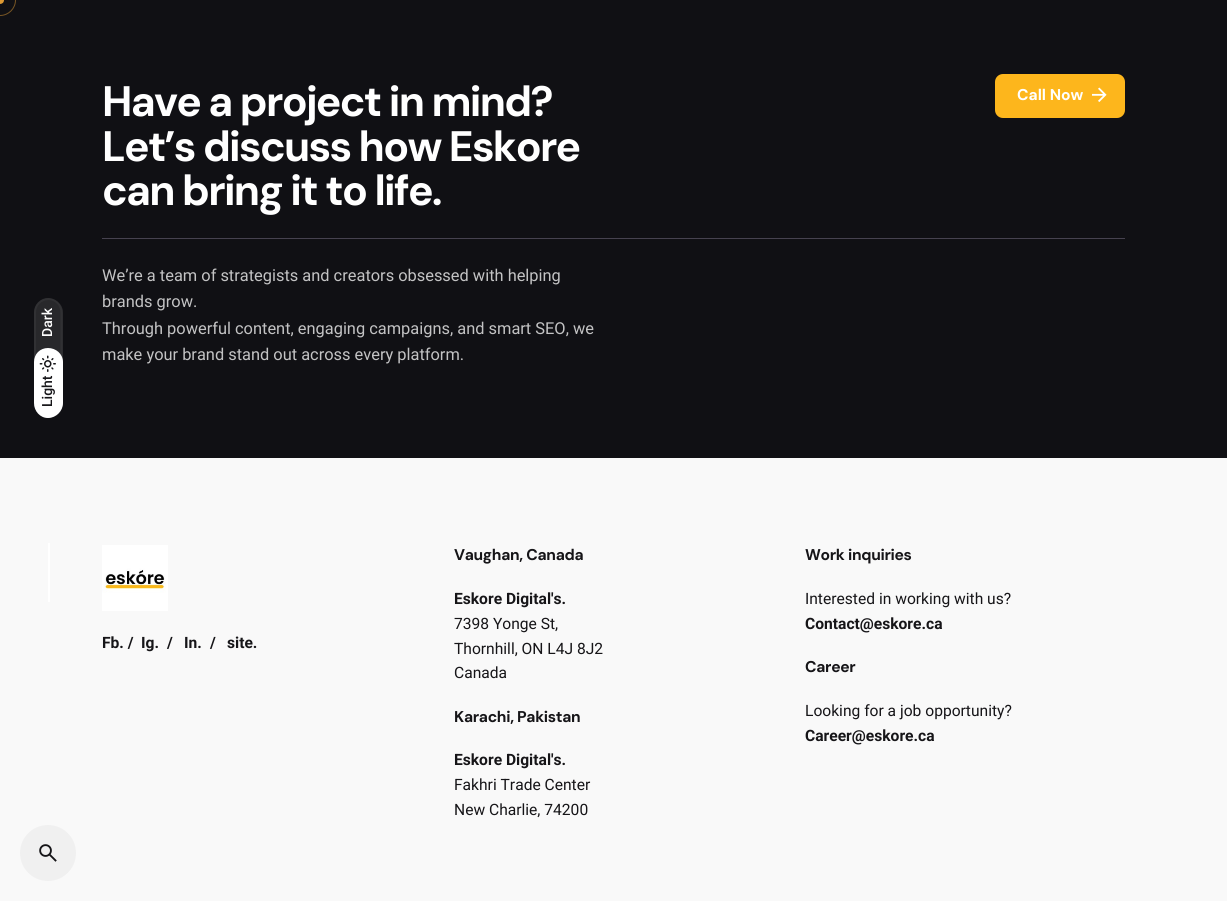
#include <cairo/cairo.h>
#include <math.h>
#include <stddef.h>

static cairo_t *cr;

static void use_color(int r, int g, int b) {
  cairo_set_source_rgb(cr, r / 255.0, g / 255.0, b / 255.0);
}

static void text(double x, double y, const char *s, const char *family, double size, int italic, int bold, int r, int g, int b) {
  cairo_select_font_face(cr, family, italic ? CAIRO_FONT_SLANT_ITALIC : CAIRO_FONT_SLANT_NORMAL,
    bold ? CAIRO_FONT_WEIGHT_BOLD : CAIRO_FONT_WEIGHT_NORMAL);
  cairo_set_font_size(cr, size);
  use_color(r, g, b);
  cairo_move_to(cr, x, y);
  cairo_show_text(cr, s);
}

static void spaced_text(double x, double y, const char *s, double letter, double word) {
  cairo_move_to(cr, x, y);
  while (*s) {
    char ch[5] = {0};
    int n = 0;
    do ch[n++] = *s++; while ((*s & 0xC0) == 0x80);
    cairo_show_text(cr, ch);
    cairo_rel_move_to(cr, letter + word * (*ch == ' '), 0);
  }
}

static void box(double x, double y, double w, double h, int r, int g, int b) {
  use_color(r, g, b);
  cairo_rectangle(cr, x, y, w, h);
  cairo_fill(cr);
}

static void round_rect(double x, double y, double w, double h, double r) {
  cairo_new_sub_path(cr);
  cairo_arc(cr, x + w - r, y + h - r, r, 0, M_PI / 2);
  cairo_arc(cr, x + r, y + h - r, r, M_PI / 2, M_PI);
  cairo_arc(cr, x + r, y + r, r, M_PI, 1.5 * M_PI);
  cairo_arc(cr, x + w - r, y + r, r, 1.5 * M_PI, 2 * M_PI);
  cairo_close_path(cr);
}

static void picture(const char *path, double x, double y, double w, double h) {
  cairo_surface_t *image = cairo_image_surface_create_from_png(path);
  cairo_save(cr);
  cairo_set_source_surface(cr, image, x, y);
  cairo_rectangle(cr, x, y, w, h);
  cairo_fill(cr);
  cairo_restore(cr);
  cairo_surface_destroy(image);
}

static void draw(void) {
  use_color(249, 249, 249);
  cairo_paint(cr);
  box(0, 0, 1227, 458, 16, 16, 20);
  cairo_arc(cr, 0, 0, 15.5, 0, 2 * M_PI);
  use_color(119, 85, 36);
  cairo_set_line_width(cr, 1);
  cairo_stroke(cr);
  use_color(221, 153, 51);
  cairo_arc(cr, 0, 0, 4, 0, 2 * M_PI);
  cairo_fill(cr);
  use_color(40, 40, 43);
  cairo_new_path(cr);
  cairo_move_to(cr, 34, 403);
  cairo_line_to(cr, 34, 312);
  cairo_curve_to(cr, 34, 305, 40, 298, 48, 298);
  cairo_curve_to(cr, 56, 298, 63, 305, 63, 312);
  cairo_line_to(cr, 63, 403);
  cairo_curve_to(cr, 63, 411, 56, 418, 48, 418);
  cairo_curve_to(cr, 40, 418, 34, 411, 34, 403);
  cairo_close_path(cr);
  cairo_fill(cr);
  cairo_new_path(cr);
  cairo_move_to(cr, 35, 403.5);
  cairo_line_to(cr, 35, 312.5);
  cairo_curve_to(cr, 35, 305, 41, 299, 48.5, 299);
  cairo_curve_to(cr, 55.5, 299, 61.5, 305, 61.5, 312.5);
  cairo_line_to(cr, 61.5, 403.5);
  cairo_curve_to(cr, 61.5, 411, 55.5, 417, 48.5, 417);
  cairo_curve_to(cr, 41, 417, 35, 411, 35, 403.5);
  cairo_close_path(cr);
  cairo_set_source_rgba(cr, 0.533, 0.533, 0.537, 0.1);
  cairo_set_line_width(cr, 2);
  cairo_stroke(cr);
  use_color(255, 255, 255);
  cairo_new_path(cr);
  cairo_move_to(cr, 34, 403);
  cairo_line_to(cr, 34, 362);
  cairo_curve_to(cr, 34, 354, 40, 348, 48, 348);
  cairo_curve_to(cr, 56, 348, 63, 354, 63, 362);
  cairo_line_to(cr, 63, 403);
  cairo_curve_to(cr, 63, 411, 56, 418, 48, 418);
  cairo_curve_to(cr, 40, 418, 34, 411, 34, 403);
  cairo_close_path(cr);
  cairo_fill(cr);
  picture("img_01.png", 39, 355, 17, 17);
  box(48, 543, 2, 59, 255, 255, 255);
  use_color(253, 182, 28);
  round_rect(995, 74, 130, 44, 8);
  cairo_fill(cr);
  picture("img_02.png", 1092, 87, 15, 15);
  box(102, 238, 1023, 1, 70, 66, 79);
  picture("img_03.png", 102, 545, 66, 66);
  use_color(240, 240, 240);
  cairo_arc(cr, 48, 853, 28, 0, 2 * M_PI);
  cairo_fill(cr);
  picture("img_04.png", 39, 844, 18, 18);
  cairo_save(cr);
  cairo_translate(cr, 52, 337);
  cairo_rotate(cr, -90 * M_PI / 180);
  text(0, 0, "Dark", "Roboto Medium", 14, 0, 0, 255, 255, 255);
  cairo_restore(cr);
  cairo_save(cr);
  cairo_translate(cr, 52, 407);
  cairo_rotate(cr, -90 * M_PI / 180);
  text(0, 0, "Light", "Roboto Medium", 14, 0, 0, 22, 21, 24);
  cairo_restore(cr);
  cairo_select_font_face(cr, "DM Sans", CAIRO_FONT_SLANT_NORMAL, CAIRO_FONT_WEIGHT_BOLD);
  cairo_set_font_size(cr, 42.6);
  use_color(255, 255, 255);
  spaced_text(102, 116, "Have a project in mind?", -1.75, 0);
  spaced_text(102, 161, "Let’s discuss how Eskore", -1.75, 0);
  spaced_text(102, 205, "can bring it to life.", -1.75, 0);
  text(1017, 100, "Call Now", "DM Sans", 15.6, 0, 1, 255, 255, 255);
  text(102, 281, "We’re a team of strategists and creators obsessed with helping", "Roboto", 16.4, 0, 0, 195, 195, 196);
  text(102, 307, "brands grow.", "Roboto", 16.4, 0, 0, 195, 195, 196);
  text(102, 334, "Through powerful content, engaging campaigns, and smart SEO, we", "Roboto", 16.4, 0, 0, 195, 195, 196);
  text(102, 360, "make your brand stand out across every platform.", "Roboto", 16.4, 0, 0, 195, 195, 196);
  text(102, 648, "Fb. /", "Roboto", 15.6, 0, 1, 22, 21, 24);
  text(141, 648, "Ig.", "Roboto", 15.6, 0, 1, 22, 21, 24);
  text(167, 648, "/", "Roboto", 15.6, 0, 1, 22, 21, 24);
  text(184, 648, "In.", "Roboto", 15.6, 0, 1, 22, 21, 24);
  text(210, 648, "/", "Roboto", 15.6, 0, 1, 22, 21, 24);
  text(227, 648, "site.", "Roboto", 15.6, 0, 1, 22, 21, 24);
  cairo_select_font_face(cr, "DM Sans", CAIRO_FONT_SLANT_NORMAL, CAIRO_FONT_WEIGHT_BOLD);
  spaced_text(454, 560, "Vaughan, Canada", -0.3, 0);
  text(454, 604, "Eskore Digital's.", "Roboto", 15.6, 0, 1, 22, 21, 24);
  text(454, 629, "7398 Yonge St,", "Roboto", 15.6, 0, 0, 22, 21, 24);
  text(454, 654, "Thornhill, ON L4J 8J2", "Roboto", 15.6, 0, 0, 22, 21, 24);
  text(454, 678, "Canada", "Roboto", 15.6, 0, 0, 22, 21, 24);
  cairo_select_font_face(cr, "DM Sans", CAIRO_FONT_SLANT_NORMAL, CAIRO_FONT_WEIGHT_BOLD);
  spaced_text(454, 722, "Karachi, Pakistan", -0.3, 0);
  text(454, 765, "Eskore Digital's.", "Roboto", 15.6, 0, 1, 22, 21, 24);
  text(454, 790, "Fakhri Trade Center", "Roboto", 15.6, 0, 0, 22, 21, 24);
  text(454, 815, "New Charlie, 74200", "Roboto", 15.6, 0, 0, 22, 21, 24);
  cairo_select_font_face(cr, "DM Sans", CAIRO_FONT_SLANT_NORMAL, CAIRO_FONT_WEIGHT_BOLD);
  spaced_text(805, 560, "Work inquiries", -0.3, 0);
  text(805, 604, "Interested in working with us?", "Roboto", 15.6, 0, 0, 22, 21, 24);
  text(805, 629, "Contact@eskore.ca", "Roboto", 15.6, 0, 1, 22, 21, 24);
  cairo_select_font_face(cr, "DM Sans", CAIRO_FONT_SLANT_NORMAL, CAIRO_FONT_WEIGHT_BOLD);
  spaced_text(805, 672, "Career", -0.3, 0);
  text(805, 716, "Looking for a job opportunity?", "Roboto", 15.6, 0, 0, 22, 21, 24);
  text(805, 741, "Career@eskore.ca", "Roboto", 15.6, 0, 1, 22, 21, 24);
}

int main(void) {
  cairo_surface_t *surface = cairo_image_surface_create(CAIRO_FORMAT_RGB24, 1227, 901);
  cr = cairo_create(surface);
  cairo_font_options_t *options = cairo_font_options_create();
  cairo_font_options_set_hint_metrics(options, CAIRO_HINT_METRICS_OFF);
  cairo_font_options_set_hint_style(options, CAIRO_HINT_STYLE_NONE);
  cairo_set_font_options(cr, options);
  cairo_set_miter_limit(cr, 4);
  draw();
  cairo_surface_write_to_png(surface, "out.png");
  cairo_font_options_destroy(options);
  cairo_destroy(cr);
  cairo_surface_destroy(surface);
  return 0;
}
